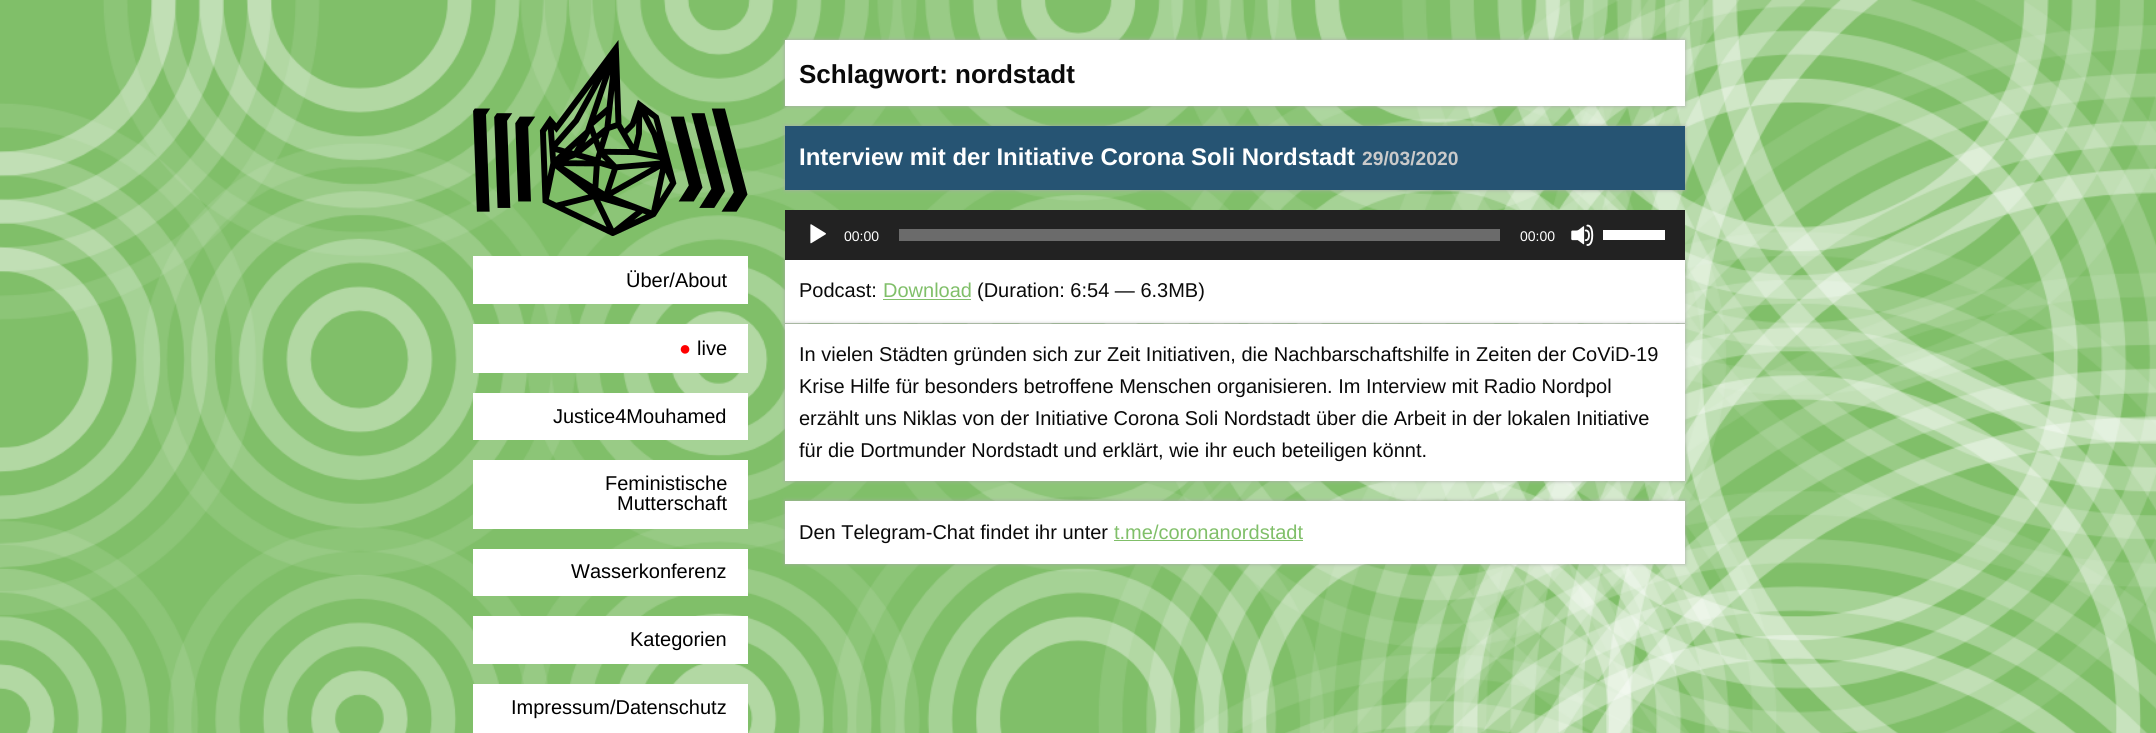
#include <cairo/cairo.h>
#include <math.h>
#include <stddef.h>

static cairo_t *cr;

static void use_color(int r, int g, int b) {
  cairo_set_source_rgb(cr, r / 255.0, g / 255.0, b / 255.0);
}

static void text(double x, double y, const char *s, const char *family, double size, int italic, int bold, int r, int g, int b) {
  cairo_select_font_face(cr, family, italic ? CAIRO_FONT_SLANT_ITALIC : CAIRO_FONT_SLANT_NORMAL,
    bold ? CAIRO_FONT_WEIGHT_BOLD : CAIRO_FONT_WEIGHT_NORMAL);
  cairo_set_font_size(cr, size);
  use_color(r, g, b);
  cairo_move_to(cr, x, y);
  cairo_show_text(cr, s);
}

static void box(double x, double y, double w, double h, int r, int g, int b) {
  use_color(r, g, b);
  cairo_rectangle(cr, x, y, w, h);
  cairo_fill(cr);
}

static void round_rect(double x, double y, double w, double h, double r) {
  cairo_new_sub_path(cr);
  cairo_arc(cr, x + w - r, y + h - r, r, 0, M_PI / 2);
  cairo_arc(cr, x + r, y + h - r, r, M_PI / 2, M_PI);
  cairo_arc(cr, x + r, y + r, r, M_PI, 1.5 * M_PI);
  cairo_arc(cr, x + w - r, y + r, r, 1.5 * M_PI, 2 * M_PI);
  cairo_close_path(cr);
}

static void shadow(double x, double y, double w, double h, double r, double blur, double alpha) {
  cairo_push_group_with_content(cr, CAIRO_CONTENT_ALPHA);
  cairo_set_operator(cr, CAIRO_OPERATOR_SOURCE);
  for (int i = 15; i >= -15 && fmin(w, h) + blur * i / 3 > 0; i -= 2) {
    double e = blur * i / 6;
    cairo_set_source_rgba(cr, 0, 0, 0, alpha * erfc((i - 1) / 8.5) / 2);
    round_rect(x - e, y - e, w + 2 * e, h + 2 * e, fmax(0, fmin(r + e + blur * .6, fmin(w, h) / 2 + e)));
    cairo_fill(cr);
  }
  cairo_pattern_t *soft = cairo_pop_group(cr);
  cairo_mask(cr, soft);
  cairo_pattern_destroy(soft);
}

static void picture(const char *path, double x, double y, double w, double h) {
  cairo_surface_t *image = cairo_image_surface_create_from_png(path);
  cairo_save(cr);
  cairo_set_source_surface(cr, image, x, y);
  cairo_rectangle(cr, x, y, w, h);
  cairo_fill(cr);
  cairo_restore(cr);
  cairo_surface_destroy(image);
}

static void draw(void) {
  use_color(255, 255, 255);
  cairo_paint(cr);
  picture("img_01.png", 0, 0, 2156, 733);
  picture("img_02.png", 473, 40, 275, 196);
  box(473, 256, 275, 48, 255, 255, 255);
  box(473, 324, 275, 49, 255, 255, 255);
  box(473, 393, 275, 47, 255, 255, 255);
  box(473, 460, 275, 69, 255, 255, 255);
  box(473, 549, 275, 47, 255, 255, 255);
  box(473, 616, 275, 48, 255, 255, 255);
  box(473, 684, 275, 49, 255, 255, 255);
  use_color(170, 170, 170);
  shadow(785, 40, 900, 66, 0, 2, 1);
  box(785, 40, 900, 66, 255, 255, 255);
  use_color(170, 170, 170);
  shadow(785, 126, 900, 64, 0, 2, 1);
  box(785, 126, 900, 64, 38, 84, 115);
  use_color(170, 170, 170);
  shadow(785, 260, 900, 63, 0, 2, 1);
  box(785, 210, 900, 50, 34, 34, 34);
  picture("img_03.png", 810, 224, 16, 20);
  box(899, 229, 601, 12, 107, 107, 107);
  picture("img_04.png", 1571, 224, 23, 22);
  box(1603, 230, 62, 10, 255, 255, 255);
  box(785, 260, 900, 63, 255, 255, 255);
  box(883, 299, 88, 1, 128, 191, 105);
  use_color(170, 170, 170);
  shadow(785, 324, 900, 157, 0, 2, 1);
  box(785, 324, 900, 157, 255, 255, 255);
  use_color(170, 170, 170);
  shadow(785, 501, 900, 63, 0, 2, 1);
  box(785, 501, 900, 63, 255, 255, 255);
  box(1114, 540, 189, 1, 128, 191, 105);
  text(626, 287, "Über/About", "Liberation Sans", 20, 0, 0, 0, 0, 0);
  text(679, 355, "●", "Liberation Sans", 20, 0, 0, 255, 0, 0);
  text(697, 355, "live", "Liberation Sans", 20, 0, 0, 0, 0, 0);
  text(553, 423, "Justice4Mouhamed", "Liberation Sans", 20, 0, 0, 0, 0, 0);
  text(605, 490, "Feministische", "Liberation Sans", 20, 0, 0, 0, 0, 0);
  text(617, 510, "Mutterschaft", "Liberation Sans", 20, 0, 0, 0, 0, 0);
  text(571, 578, "Wasserkonferenz", "Liberation Sans", 20, 0, 0, 0, 0, 0);
  text(630, 646, "Kategorien", "Liberation Sans", 20, 0, 0, 0, 0, 0);
  text(511, 714, "Impressum/Datenschutz", "Liberation Sans", 20, 0, 0, 0, 0, 0);
  text(799, 83, "Schlagwort: nordstadt", "Liberation Sans", 26, 0, 1, 10, 10, 10);
  text(799, 165, "Interview mit der Initiative Corona Soli Nordstadt", "Liberation Sans", 24, 0, 1, 255, 255, 255);
  text(1362, 165, "29/03/2020", "Liberation Sans", 19.25, 0, 1, 202, 202, 202);
  text(844, 241, "00:00", "Liberation Sans", 14, 0, 0, 255, 255, 255);
  text(1520, 241, "00:00", "Liberation Sans", 14, 0, 0, 255, 255, 255);
  text(799, 297, "Podcast:", "Liberation Sans", 20, 0, 0, 10, 10, 10);
  text(883, 297, "Download", "Liberation Sans", 20, 0, 0, 128, 191, 105);
  text(977, 297, "(Duration: 6:54 — 6.3MB)", "Liberation Sans", 20, 0, 0, 10, 10, 10);
  text(799, 361, "In vielen Städten gründen sich zur Zeit Initiativen, die Nachbarschaftshilfe in Zeiten der CoViD-19", "Liberation Sans", 20, 0, 0, 10, 10, 10);
  text(799, 393, "Krise Hilfe für besonders betroffene Menschen organisieren. Im Interview mit Radio Nordpol", "Liberation Sans", 20, 0, 0, 10, 10, 10);
  text(799, 425, "erzählt uns Niklas von der Initiative Corona Soli Nordstadt über die Arbeit in der lokalen Initiative", "Liberation Sans", 20, 0, 0, 10, 10, 10);
  text(799, 457, "für die Dortmunder Nordstadt und erklärt, wie ihr euch beteiligen könnt.", "Liberation Sans", 20, 0, 0, 10, 10, 10);
  text(799, 539, "Den Telegram-Chat findet ihr unter", "Liberation Sans", 20, 0, 0, 10, 10, 10);
  text(1114, 539, "t.me/coronanordstadt", "Liberation Sans", 20, 0, 0, 128, 191, 105);
}

int main(void) {
  cairo_surface_t *surface = cairo_image_surface_create(CAIRO_FORMAT_RGB24, 2156, 733);
  cr = cairo_create(surface);
  cairo_font_options_t *options = cairo_font_options_create();
  cairo_font_options_set_hint_metrics(options, CAIRO_HINT_METRICS_OFF);
  cairo_font_options_set_hint_style(options, CAIRO_HINT_STYLE_NONE);
  cairo_set_font_options(cr, options);
  cairo_set_miter_limit(cr, 4);
  draw();
  cairo_surface_write_to_png(surface, "out.png");
  cairo_font_options_destroy(options);
  cairo_destroy(cr);
  cairo_surface_destroy(surface);
  return 0;
}
